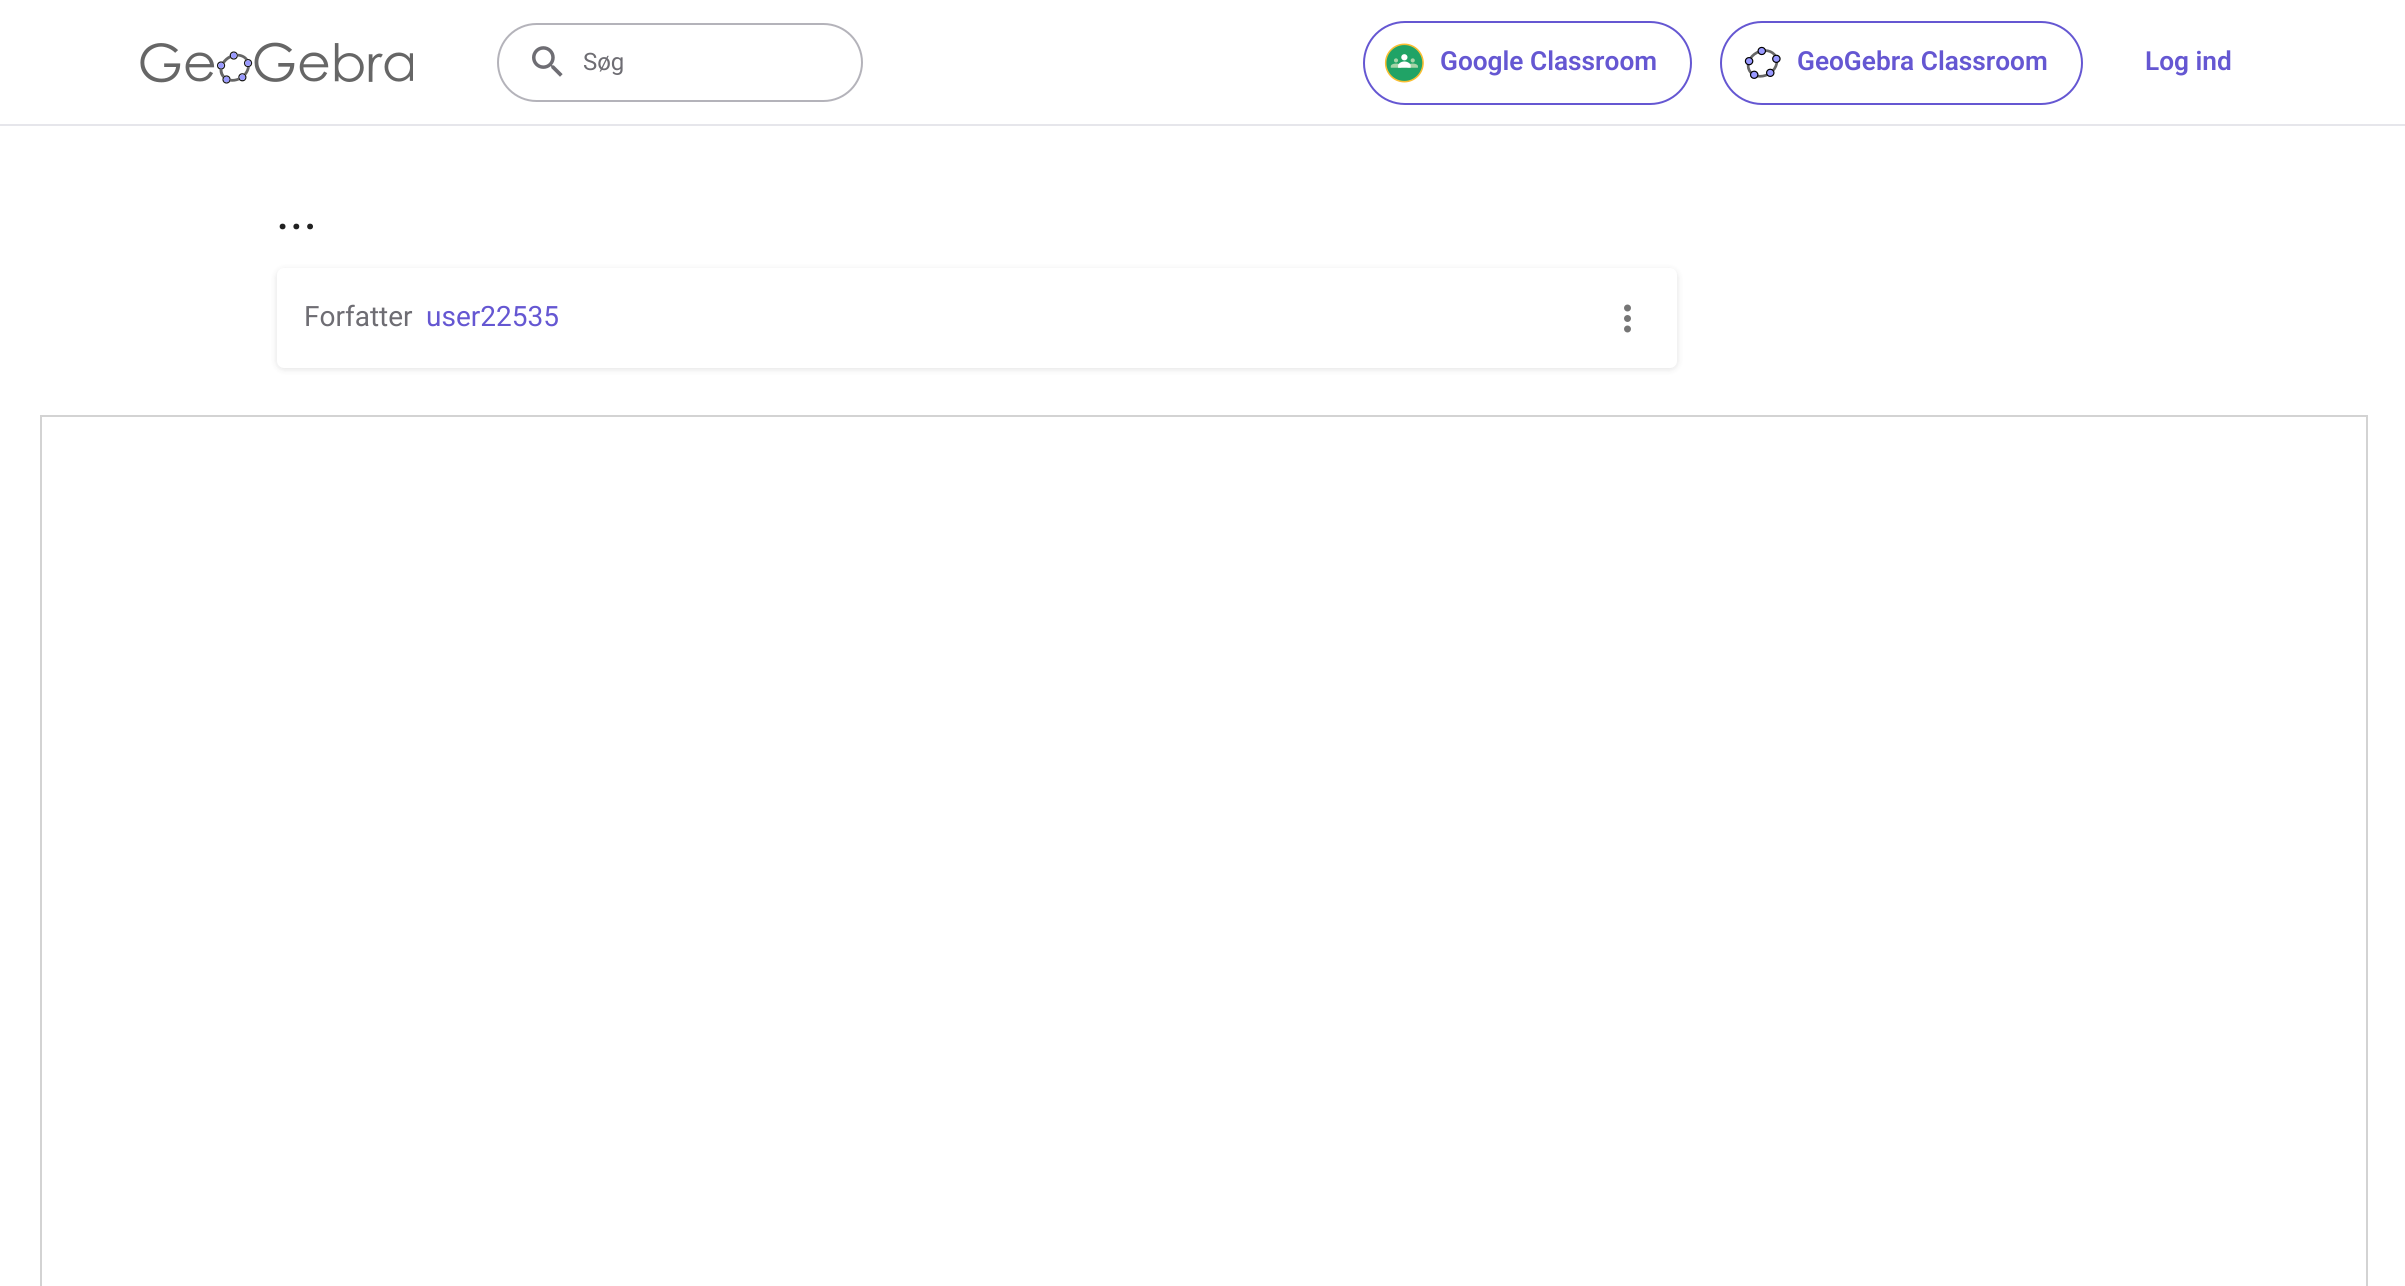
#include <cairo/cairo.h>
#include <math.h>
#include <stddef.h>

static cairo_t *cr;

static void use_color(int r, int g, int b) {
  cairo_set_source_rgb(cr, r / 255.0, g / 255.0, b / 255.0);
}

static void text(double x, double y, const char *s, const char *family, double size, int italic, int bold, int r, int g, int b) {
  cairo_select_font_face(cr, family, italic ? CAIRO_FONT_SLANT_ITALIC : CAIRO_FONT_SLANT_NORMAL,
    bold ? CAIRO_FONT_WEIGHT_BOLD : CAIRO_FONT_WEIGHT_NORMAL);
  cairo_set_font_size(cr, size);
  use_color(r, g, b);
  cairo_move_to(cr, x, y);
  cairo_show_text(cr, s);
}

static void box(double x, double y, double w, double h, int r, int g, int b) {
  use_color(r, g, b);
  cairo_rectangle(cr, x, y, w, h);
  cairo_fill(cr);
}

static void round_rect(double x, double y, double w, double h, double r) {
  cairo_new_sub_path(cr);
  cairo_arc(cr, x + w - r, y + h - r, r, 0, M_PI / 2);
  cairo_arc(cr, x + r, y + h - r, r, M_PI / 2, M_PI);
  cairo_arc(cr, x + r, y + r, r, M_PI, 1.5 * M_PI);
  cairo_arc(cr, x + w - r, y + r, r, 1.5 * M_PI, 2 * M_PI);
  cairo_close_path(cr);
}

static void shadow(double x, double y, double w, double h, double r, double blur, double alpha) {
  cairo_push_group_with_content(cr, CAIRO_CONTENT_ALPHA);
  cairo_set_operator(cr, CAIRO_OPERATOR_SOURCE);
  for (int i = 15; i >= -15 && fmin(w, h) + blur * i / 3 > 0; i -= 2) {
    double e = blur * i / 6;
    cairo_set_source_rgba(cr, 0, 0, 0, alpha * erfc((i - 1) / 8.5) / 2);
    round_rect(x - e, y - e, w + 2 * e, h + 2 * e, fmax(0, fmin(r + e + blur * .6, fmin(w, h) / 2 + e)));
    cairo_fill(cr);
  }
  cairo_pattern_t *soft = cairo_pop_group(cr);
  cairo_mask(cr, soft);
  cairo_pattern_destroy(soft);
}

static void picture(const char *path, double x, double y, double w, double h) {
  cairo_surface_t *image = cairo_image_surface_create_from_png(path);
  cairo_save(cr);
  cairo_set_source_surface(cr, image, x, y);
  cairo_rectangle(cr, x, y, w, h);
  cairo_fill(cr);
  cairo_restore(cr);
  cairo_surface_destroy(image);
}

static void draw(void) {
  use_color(255, 255, 255);
  cairo_paint(cr);
  box(0, 124, 2405, 2, 230, 230, 235);
  picture("img_01.png", 140, 42, 273, 42);
  round_rect(498, 24, 364, 77, 38.5);
  use_color(180, 179, 186);
  cairo_stroke(cr);
  picture("img_02.png", 532, 46, 31, 31);
  round_rect(1364, 22, 327, 82, 41);
  use_color(101, 87, 210);
  cairo_stroke(cr);
  picture("img_03.png", 1384, 43, 40, 40);
  round_rect(1721, 22, 361, 82, 41);
  cairo_stroke(cr);
  picture("img_04.png", 1744, 46, 37, 33);
  use_color(28, 28, 31);
  shadow(277, 270, 1400, 99, 7, 3.5, 0.14);
  use_color(255, 255, 255);
  round_rect(277, 268, 1400, 100, 7);
  cairo_fill(cr);
  picture("img_05.png", 1624, 304, 7, 29);
  cairo_rectangle(cr, 41, 416, 2326, 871);
  use_color(211, 211, 211);
  cairo_stroke(cr);
  text(583, 70, "Søg", "Roboto", 24, 0, 0, 110, 109, 115);
  text(1440, 70, "Google Classroom", "Roboto SemiBold", 26.25, 0, 0, 101, 87, 210);
  text(1797, 70, "GeoGebra Classroom", "Roboto SemiBold", 26.25, 0, 0, 101, 87, 210);
  text(2145, 70, "Log ind", "Roboto SemiBold", 26.25, 0, 0, 101, 87, 210);
  text(276, 229, "...", "Roboto", 52, 0, 0, 33, 33, 33);
  text(304, 326, "Forfatter", "Roboto", 28, 0, 0, 110, 109, 115);
  text(426, 326, "user22535", "Roboto", 28, 0, 0, 101, 87, 210);
}

int main(void) {
  cairo_surface_t *surface = cairo_image_surface_create(CAIRO_FORMAT_RGB24, 2405, 1286);
  cr = cairo_create(surface);
  cairo_font_options_t *options = cairo_font_options_create();
  cairo_font_options_set_hint_metrics(options, CAIRO_HINT_METRICS_OFF);
  cairo_font_options_set_hint_style(options, CAIRO_HINT_STYLE_NONE);
  cairo_set_font_options(cr, options);
  cairo_set_miter_limit(cr, 4);
  draw();
  cairo_surface_write_to_png(surface, "out.png");
  cairo_font_options_destroy(options);
  cairo_destroy(cr);
  cairo_surface_destroy(surface);
  return 0;
}
